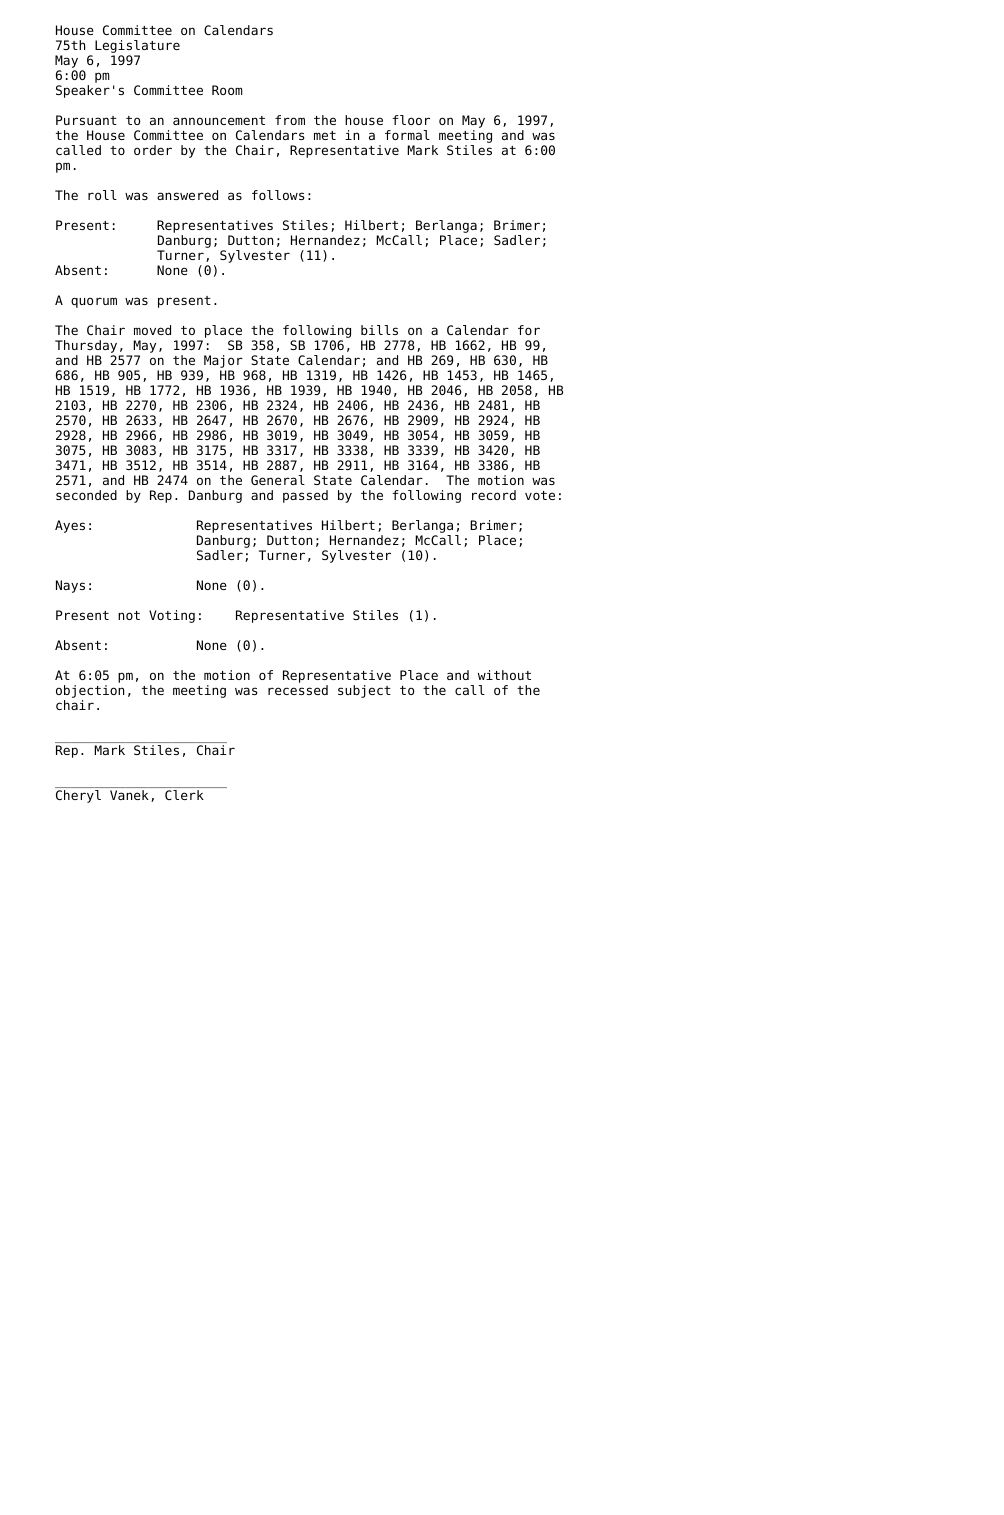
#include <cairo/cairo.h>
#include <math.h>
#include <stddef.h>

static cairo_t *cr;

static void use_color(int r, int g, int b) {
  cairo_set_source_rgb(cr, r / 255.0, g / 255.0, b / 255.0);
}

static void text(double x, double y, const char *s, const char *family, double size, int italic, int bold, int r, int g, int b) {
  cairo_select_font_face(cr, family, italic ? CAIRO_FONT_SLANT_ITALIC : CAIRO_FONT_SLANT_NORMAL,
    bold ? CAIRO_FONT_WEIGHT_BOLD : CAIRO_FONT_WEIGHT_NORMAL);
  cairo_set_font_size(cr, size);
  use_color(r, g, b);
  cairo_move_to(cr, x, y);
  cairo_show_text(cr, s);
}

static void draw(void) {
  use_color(255, 255, 255);
  cairo_paint(cr);
  text(55, 35, "House Committee on Calendars", "DejaVu Sans Mono", 13, 0, 0, 0, 0, 0);
  text(55, 50, "75th Legislature", "DejaVu Sans Mono", 13, 0, 0, 0, 0, 0);
  text(55, 65, "May 6, 1997", "DejaVu Sans Mono", 13, 0, 0, 0, 0, 0);
  text(55, 80, "6:00 pm", "DejaVu Sans Mono", 13, 0, 0, 0, 0, 0);
  text(55, 95, "Speaker's Committee Room", "DejaVu Sans Mono", 13, 0, 0, 0, 0, 0);
  text(55, 125, "Pursuant to an announcement from the house floor on May 6, 1997,", "DejaVu Sans Mono", 13, 0, 0, 0, 0, 0);
  text(55, 140, "the House Committee on Calendars met in a formal meeting and was", "DejaVu Sans Mono", 13, 0, 0, 0, 0, 0);
  text(55, 155, "called to order by the Chair, Representative Mark Stiles at 6:00", "DejaVu Sans Mono", 13, 0, 0, 0, 0, 0);
  text(55, 170, "pm.", "DejaVu Sans Mono", 13, 0, 0, 0, 0, 0);
  text(55, 200, "The roll was answered as follows:", "DejaVu Sans Mono", 13, 0, 0, 0, 0, 0);
  text(55, 230, "Present:     Representatives Stiles; Hilbert; Berlanga; Brimer;", "DejaVu Sans Mono", 13, 0, 0, 0, 0, 0);
  text(157, 245, "Danburg; Dutton; Hernandez; McCall; Place; Sadler;", "DejaVu Sans Mono", 13, 0, 0, 0, 0, 0);
  text(157, 260, "Turner, Sylvester (11).", "DejaVu Sans Mono", 13, 0, 0, 0, 0, 0);
  text(55, 275, "Absent:      None (0).", "DejaVu Sans Mono", 13, 0, 0, 0, 0, 0);
  text(55, 305, "A quorum was present.", "DejaVu Sans Mono", 13, 0, 0, 0, 0, 0);
  text(55, 335, "The Chair moved to place the following bills on a Calendar for", "DejaVu Sans Mono", 13, 0, 0, 0, 0, 0);
  text(55, 350, "Thursday, May, 1997:  SB 358, SB 1706, HB 2778, HB 1662, HB 99,", "DejaVu Sans Mono", 13, 0, 0, 0, 0, 0);
  text(55, 365, "and HB 2577 on the Major State Calendar; and HB 269, HB 630, HB", "DejaVu Sans Mono", 13, 0, 0, 0, 0, 0);
  text(55, 380, "686, HB 905, HB 939, HB 968, HB 1319, HB 1426, HB 1453, HB 1465,", "DejaVu Sans Mono", 13, 0, 0, 0, 0, 0);
  text(55, 395, "HB 1519, HB 1772, HB 1936, HB 1939, HB 1940, HB 2046, HB 2058, HB", "DejaVu Sans Mono", 13, 0, 0, 0, 0, 0);
  text(55, 410, "2103, HB 2270, HB 2306, HB 2324, HB 2406, HB 2436, HB 2481, HB", "DejaVu Sans Mono", 13, 0, 0, 0, 0, 0);
  text(55, 425, "2570, HB 2633, HB 2647, HB 2670, HB 2676, HB 2909, HB 2924, HB", "DejaVu Sans Mono", 13, 0, 0, 0, 0, 0);
  text(55, 440, "2928, HB 2966, HB 2986, HB 3019, HB 3049, HB 3054, HB 3059, HB", "DejaVu Sans Mono", 13, 0, 0, 0, 0, 0);
  text(55, 455, "3075, HB 3083, HB 3175, HB 3317, HB 3338, HB 3339, HB 3420, HB", "DejaVu Sans Mono", 13, 0, 0, 0, 0, 0);
  text(55, 470, "3471, HB 3512, HB 3514, HB 2887, HB 2911, HB 3164, HB 3386, HB", "DejaVu Sans Mono", 13, 0, 0, 0, 0, 0);
  text(55, 485, "2571, and HB 2474 on the General State Calendar.  The motion was", "DejaVu Sans Mono", 13, 0, 0, 0, 0, 0);
  text(55, 500, "seconded by Rep. Danburg and passed by the following record vote:", "DejaVu Sans Mono", 13, 0, 0, 0, 0, 0);
  text(55, 530, "Ayes:             Representatives Hilbert; Berlanga; Brimer;", "DejaVu Sans Mono", 13, 0, 0, 0, 0, 0);
  text(196, 545, "Danburg; Dutton; Hernandez; McCall; Place;", "DejaVu Sans Mono", 13, 0, 0, 0, 0, 0);
  text(196, 560, "Sadler; Turner, Sylvester (10).", "DejaVu Sans Mono", 13, 0, 0, 0, 0, 0);
  text(55, 590, "Nays:             None (0).", "DejaVu Sans Mono", 13, 0, 0, 0, 0, 0);
  text(55, 620, "Present not Voting:    Representative Stiles (1).", "DejaVu Sans Mono", 13, 0, 0, 0, 0, 0);
  text(55, 650, "Absent:           None (0).", "DejaVu Sans Mono", 13, 0, 0, 0, 0, 0);
  text(55, 680, "At 6:05 pm, on the motion of Representative Place and without", "DejaVu Sans Mono", 13, 0, 0, 0, 0, 0);
  text(55, 695, "objection, the meeting was recessed subject to the call of the", "DejaVu Sans Mono", 13, 0, 0, 0, 0, 0);
  text(55, 710, "chair.", "DejaVu Sans Mono", 13, 0, 0, 0, 0, 0);
  text(55, 740, "______________________", "DejaVu Sans Mono", 13, 0, 0, 0, 0, 0);
  text(55, 755, "Rep. Mark Stiles, Chair", "DejaVu Sans Mono", 13, 0, 0, 0, 0, 0);
  text(55, 785, "______________________", "DejaVu Sans Mono", 13, 0, 0, 0, 0, 0);
  text(55, 800, "Cheryl Vanek, Clerk", "DejaVu Sans Mono", 13, 0, 0, 0, 0, 0);
}

int main(void) {
  cairo_surface_t *surface = cairo_image_surface_create(CAIRO_FORMAT_RGB24, 1004, 1515);
  cr = cairo_create(surface);
  cairo_font_options_t *options = cairo_font_options_create();
  cairo_font_options_set_hint_metrics(options, CAIRO_HINT_METRICS_OFF);
  cairo_font_options_set_hint_style(options, CAIRO_HINT_STYLE_NONE);
  cairo_set_font_options(cr, options);
  cairo_set_miter_limit(cr, 4);
  draw();
  cairo_surface_write_to_png(surface, "out.png");
  cairo_font_options_destroy(options);
  cairo_destroy(cr);
  cairo_surface_destroy(surface);
  return 0;
}
